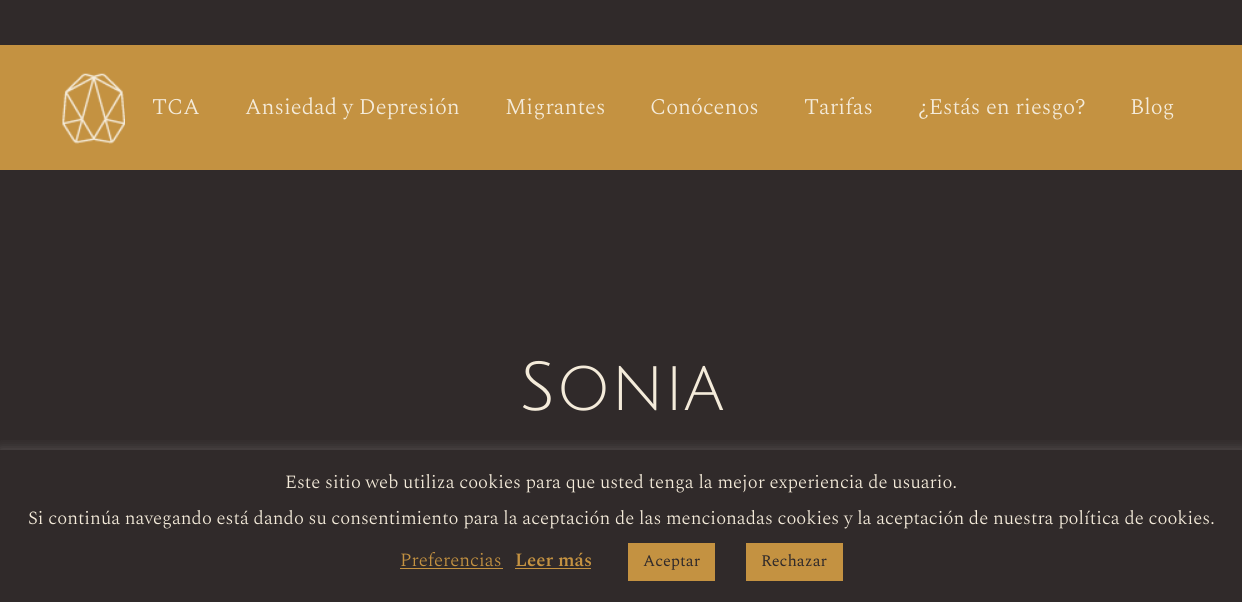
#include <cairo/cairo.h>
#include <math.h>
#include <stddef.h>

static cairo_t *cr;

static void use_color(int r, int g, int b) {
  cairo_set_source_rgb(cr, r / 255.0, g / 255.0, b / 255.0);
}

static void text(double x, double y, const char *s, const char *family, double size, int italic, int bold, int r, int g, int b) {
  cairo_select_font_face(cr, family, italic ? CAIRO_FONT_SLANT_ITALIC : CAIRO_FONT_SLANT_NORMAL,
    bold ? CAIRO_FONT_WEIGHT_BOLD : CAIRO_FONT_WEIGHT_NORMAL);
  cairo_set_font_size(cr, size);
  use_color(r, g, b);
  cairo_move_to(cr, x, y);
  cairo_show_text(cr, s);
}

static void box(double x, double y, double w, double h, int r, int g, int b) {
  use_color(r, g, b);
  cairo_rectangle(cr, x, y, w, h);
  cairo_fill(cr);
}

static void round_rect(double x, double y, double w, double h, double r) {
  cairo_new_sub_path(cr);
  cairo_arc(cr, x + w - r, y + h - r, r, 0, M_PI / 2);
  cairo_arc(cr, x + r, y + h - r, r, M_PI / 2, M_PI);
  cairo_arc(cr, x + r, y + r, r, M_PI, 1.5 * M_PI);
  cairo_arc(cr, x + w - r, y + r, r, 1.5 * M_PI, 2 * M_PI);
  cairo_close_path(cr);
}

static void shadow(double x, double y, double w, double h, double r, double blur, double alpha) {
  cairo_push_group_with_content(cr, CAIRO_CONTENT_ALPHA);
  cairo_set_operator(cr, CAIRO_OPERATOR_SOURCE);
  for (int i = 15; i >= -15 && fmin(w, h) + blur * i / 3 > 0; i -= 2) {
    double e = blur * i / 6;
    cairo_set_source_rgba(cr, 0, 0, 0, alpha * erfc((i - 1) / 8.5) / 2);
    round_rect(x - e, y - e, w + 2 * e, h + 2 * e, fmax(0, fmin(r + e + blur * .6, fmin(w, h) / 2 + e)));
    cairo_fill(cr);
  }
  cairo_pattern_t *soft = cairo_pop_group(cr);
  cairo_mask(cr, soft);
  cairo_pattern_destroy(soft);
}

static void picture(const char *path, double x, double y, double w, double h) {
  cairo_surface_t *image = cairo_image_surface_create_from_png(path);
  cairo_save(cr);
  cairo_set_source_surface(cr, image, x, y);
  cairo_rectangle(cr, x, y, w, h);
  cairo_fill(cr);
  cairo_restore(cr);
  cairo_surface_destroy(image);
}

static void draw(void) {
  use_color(48, 42, 42);
  cairo_paint(cr);
  box(0, 45, 1242, 125, 196, 146, 65);
  picture("img_01.png", 62, 73, 63, 71);
  cairo_save(cr);
  cairo_rectangle(cr, 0, 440, 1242, 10);
  cairo_clip(cr);
  use_color(172, 171, 171);
  shadow(0, 449, 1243, 152, 0, 6, 0.3);
  cairo_restore(cr);
  box(400, 568, 103, 1, 196, 146, 65);
  box(515, 568, 76, 1, 196, 146, 65);
  box(628, 543, 87, 38, 196, 146, 65);
  box(746, 543, 97, 38, 196, 146, 65);
  text(152, 114, "TCA", "Spectral Light", 22.5, 0, 0, 244, 235, 218);
  text(245, 114, "Ansiedad y Depresión", "Spectral Light", 22.5, 0, 0, 244, 235, 218);
  text(505, 114, "Migrantes", "Spectral Light", 22.5, 0, 0, 244, 235, 218);
  text(650, 114, "Conócenos", "Spectral Light", 22.5, 0, 0, 244, 235, 218);
  text(804, 114, "Tarifas", "Spectral Light", 22.5, 0, 0, 244, 235, 218);
  text(918, 114, "¿Estás en riesgo?", "Spectral Light", 22.5, 0, 0, 244, 235, 218);
  text(1130, 114, "Blog", "Spectral Light", 22.5, 0, 0, 244, 235, 218);
  text(519, 410, "Sonia", "Julius Sans One", 67.5, 0, 0, 244, 235, 218);
  text(285, 488, "Este sitio web utiliza cookies para que usted tenga la mejor experiencia de usuario.", "Spectral Light", 18.75, 0, 0, 244, 235, 218);
  text(28, 524, "Si continúa navegando está dando su consentimiento para la aceptación de las mencionadas cookies y la aceptación de nuestra política de cookies.", "Spectral Light", 18.75, 0, 0, 244, 235, 218);
  text(400, 566, "Preferencias", "Spectral Light", 18.75, 0, 0, 196, 146, 65);
  text(515, 566, "Leer más", "Spectral SemiBold", 18.75, 0, 0, 196, 146, 65);
  text(643, 566, "Aceptar", "Spectral", 16.25, 0, 0, 48, 42, 42);
  text(761, 566, "Rechazar", "Spectral", 16.25, 0, 0, 48, 42, 42);
}

int main(void) {
  cairo_surface_t *surface = cairo_image_surface_create(CAIRO_FORMAT_RGB24, 1242, 602);
  cr = cairo_create(surface);
  cairo_font_options_t *options = cairo_font_options_create();
  cairo_font_options_set_hint_metrics(options, CAIRO_HINT_METRICS_OFF);
  cairo_font_options_set_hint_style(options, CAIRO_HINT_STYLE_NONE);
  cairo_set_font_options(cr, options);
  cairo_set_miter_limit(cr, 4);
  draw();
  cairo_surface_write_to_png(surface, "out.png");
  cairo_font_options_destroy(options);
  cairo_destroy(cr);
  cairo_surface_destroy(surface);
  return 0;
}
